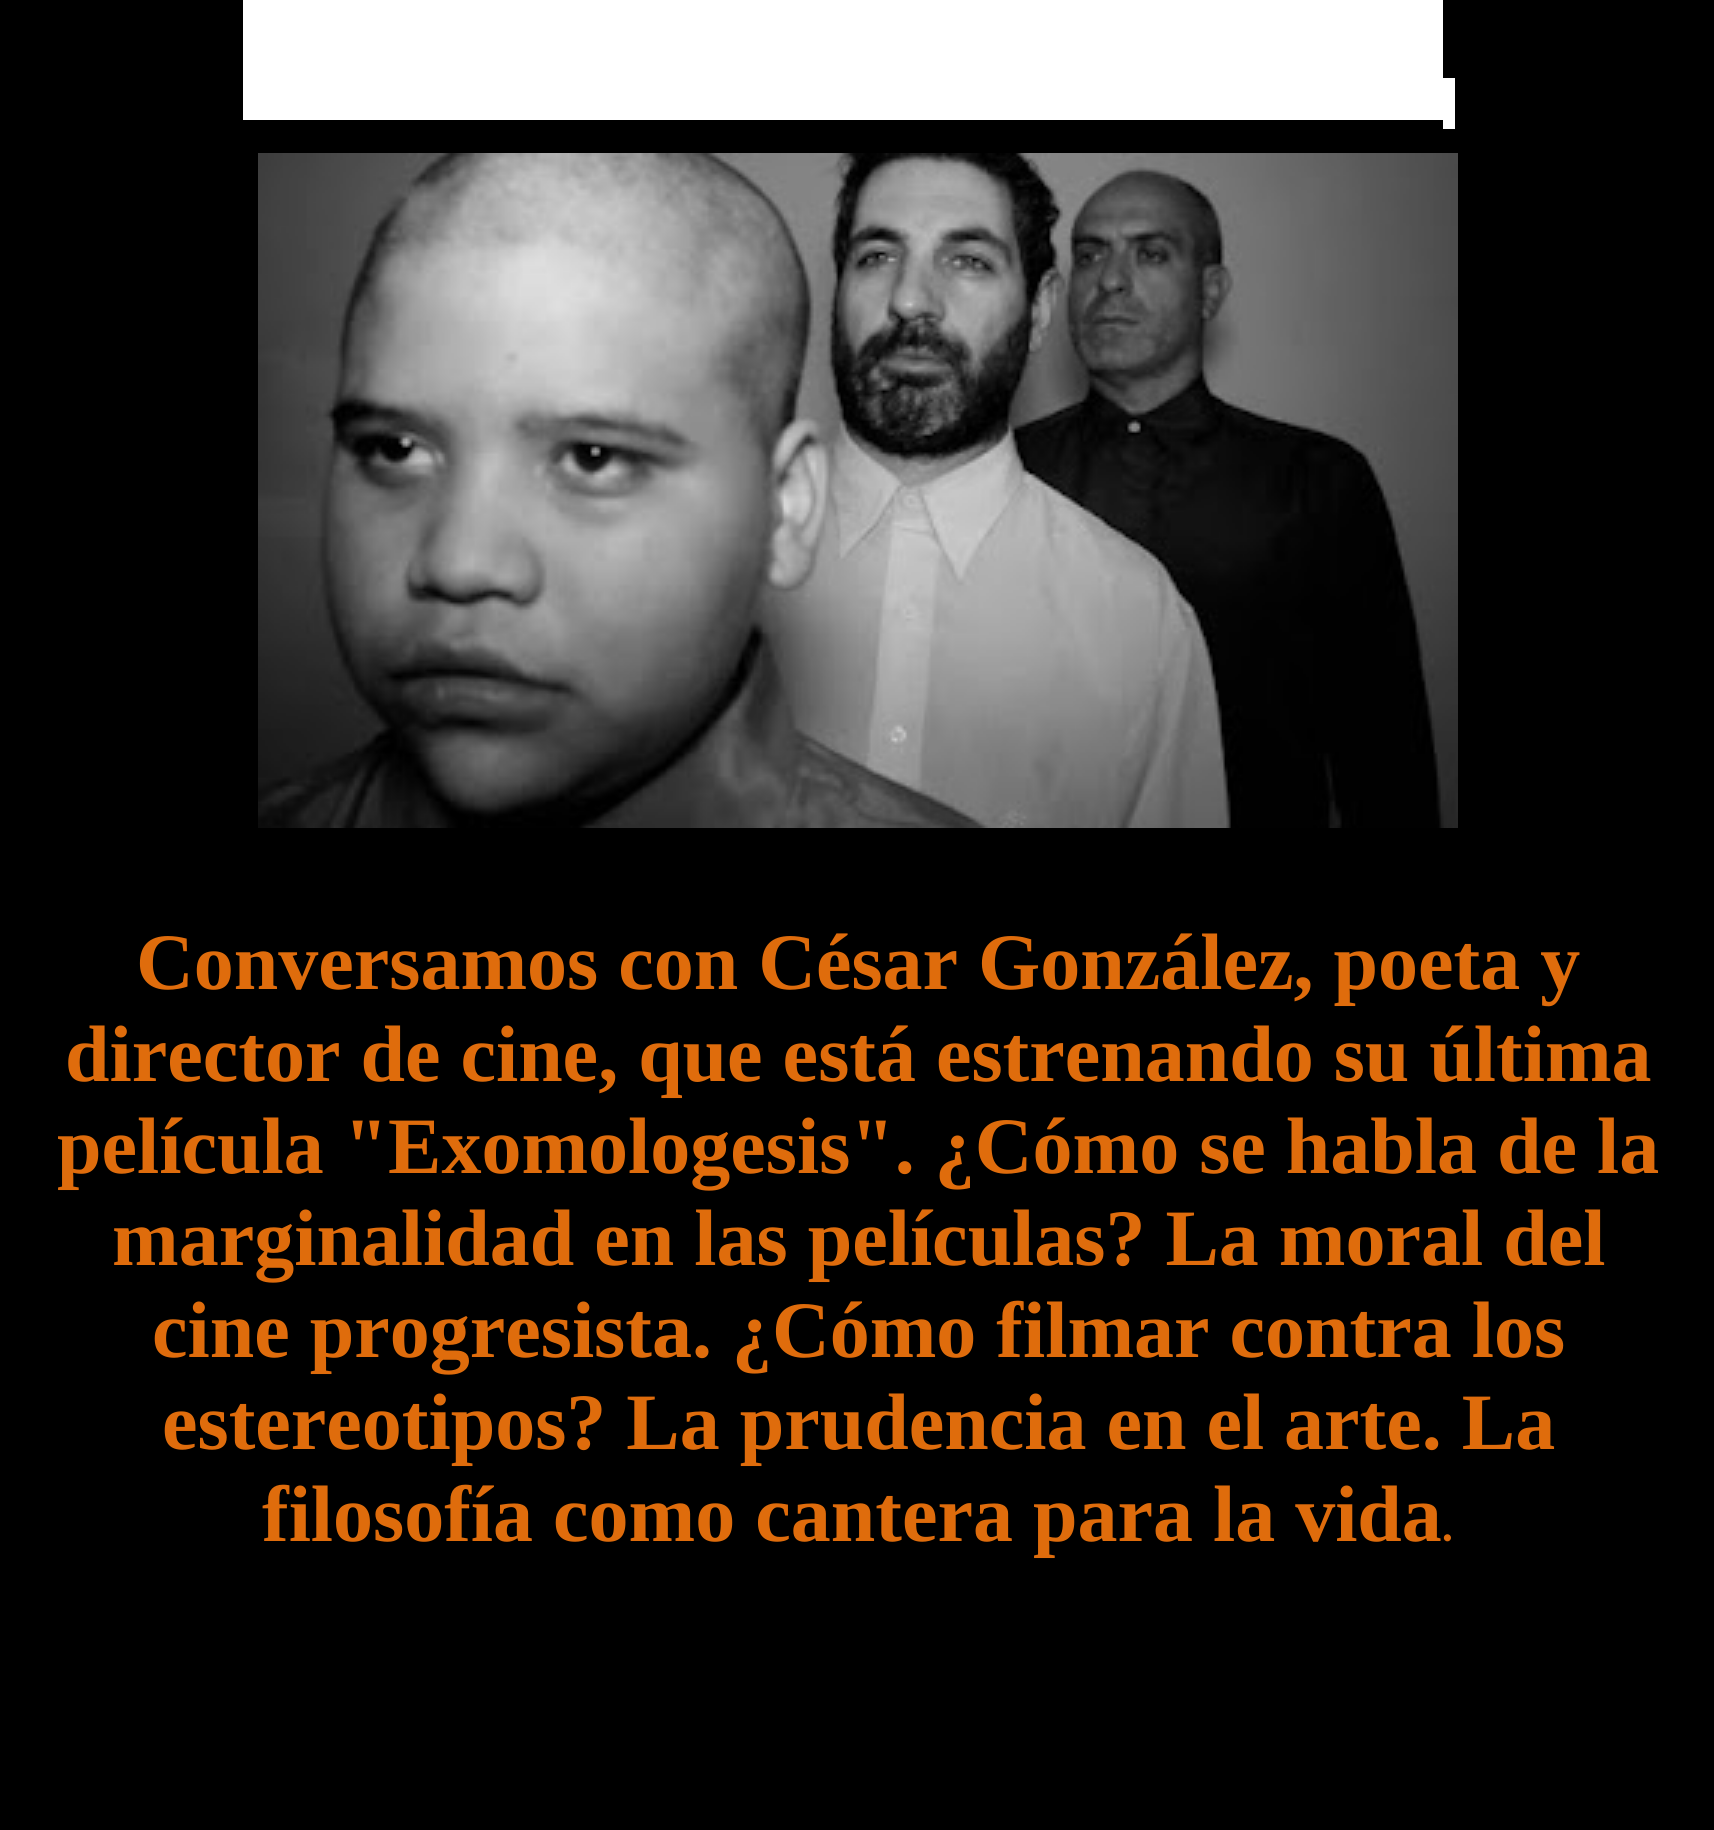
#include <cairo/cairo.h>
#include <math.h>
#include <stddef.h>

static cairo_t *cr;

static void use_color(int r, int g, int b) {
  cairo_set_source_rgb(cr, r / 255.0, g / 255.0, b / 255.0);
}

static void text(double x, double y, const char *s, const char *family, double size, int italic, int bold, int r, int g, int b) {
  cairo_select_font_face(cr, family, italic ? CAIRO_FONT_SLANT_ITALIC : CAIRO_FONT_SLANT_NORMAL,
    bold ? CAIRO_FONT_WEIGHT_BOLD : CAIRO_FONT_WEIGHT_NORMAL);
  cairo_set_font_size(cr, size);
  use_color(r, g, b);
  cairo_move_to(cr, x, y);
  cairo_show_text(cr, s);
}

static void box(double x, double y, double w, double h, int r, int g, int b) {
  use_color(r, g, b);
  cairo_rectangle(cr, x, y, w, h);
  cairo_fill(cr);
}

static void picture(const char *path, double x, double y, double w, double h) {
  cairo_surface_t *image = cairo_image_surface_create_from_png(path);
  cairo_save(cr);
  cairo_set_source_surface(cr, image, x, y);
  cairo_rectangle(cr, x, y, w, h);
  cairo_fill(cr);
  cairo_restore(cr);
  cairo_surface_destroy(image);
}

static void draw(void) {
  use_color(0, 0, 0);
  cairo_paint(cr);
  box(243, 0, 1200, 120, 255, 255, 255);
  box(1443, 78, 12, 51, 255, 255, 255);
  picture("img_01.png", 258, 153, 1200, 675);
  text(136, 989, "Conversamos con César González, poeta y", "Liberation Serif", 80, 0, 1, 223, 108, 12);
  text(65, 1081, "director de cine, que está estrenando su última", "Liberation Serif", 80, 0, 1, 223, 108, 12);
  text(57, 1173, "película \"Exomologesis\". ¿Cómo se habla de la", "Liberation Serif", 80, 0, 1, 223, 108, 12);
  text(112, 1265, "marginalidad en las películas? La moral del", "Liberation Serif", 80, 0, 1, 223, 108, 12);
  text(152, 1357, "cine progresista. ¿Cómo filmar contra los", "Liberation Serif", 80, 0, 1, 223, 108, 12);
  text(162, 1449, "estereotipos? La prudencia en el arte. La", "Liberation Serif", 80, 0, 1, 223, 108, 12);
  text(262, 1541, "filosofía como cantera para la vida", "Liberation Serif", 80, 0, 1, 223, 108, 12);
  text(1441, 1541, ".", "Carlito", 48, 0, 1, 223, 108, 12);
}

int main(void) {
  cairo_surface_t *surface = cairo_image_surface_create(CAIRO_FORMAT_RGB24, 1714, 1830);
  cr = cairo_create(surface);
  cairo_font_options_t *options = cairo_font_options_create();
  cairo_font_options_set_hint_metrics(options, CAIRO_HINT_METRICS_OFF);
  cairo_font_options_set_hint_style(options, CAIRO_HINT_STYLE_NONE);
  cairo_set_font_options(cr, options);
  cairo_set_miter_limit(cr, 4);
  draw();
  cairo_surface_write_to_png(surface, "out.png");
  cairo_font_options_destroy(options);
  cairo_destroy(cr);
  cairo_surface_destroy(surface);
  return 0;
}
